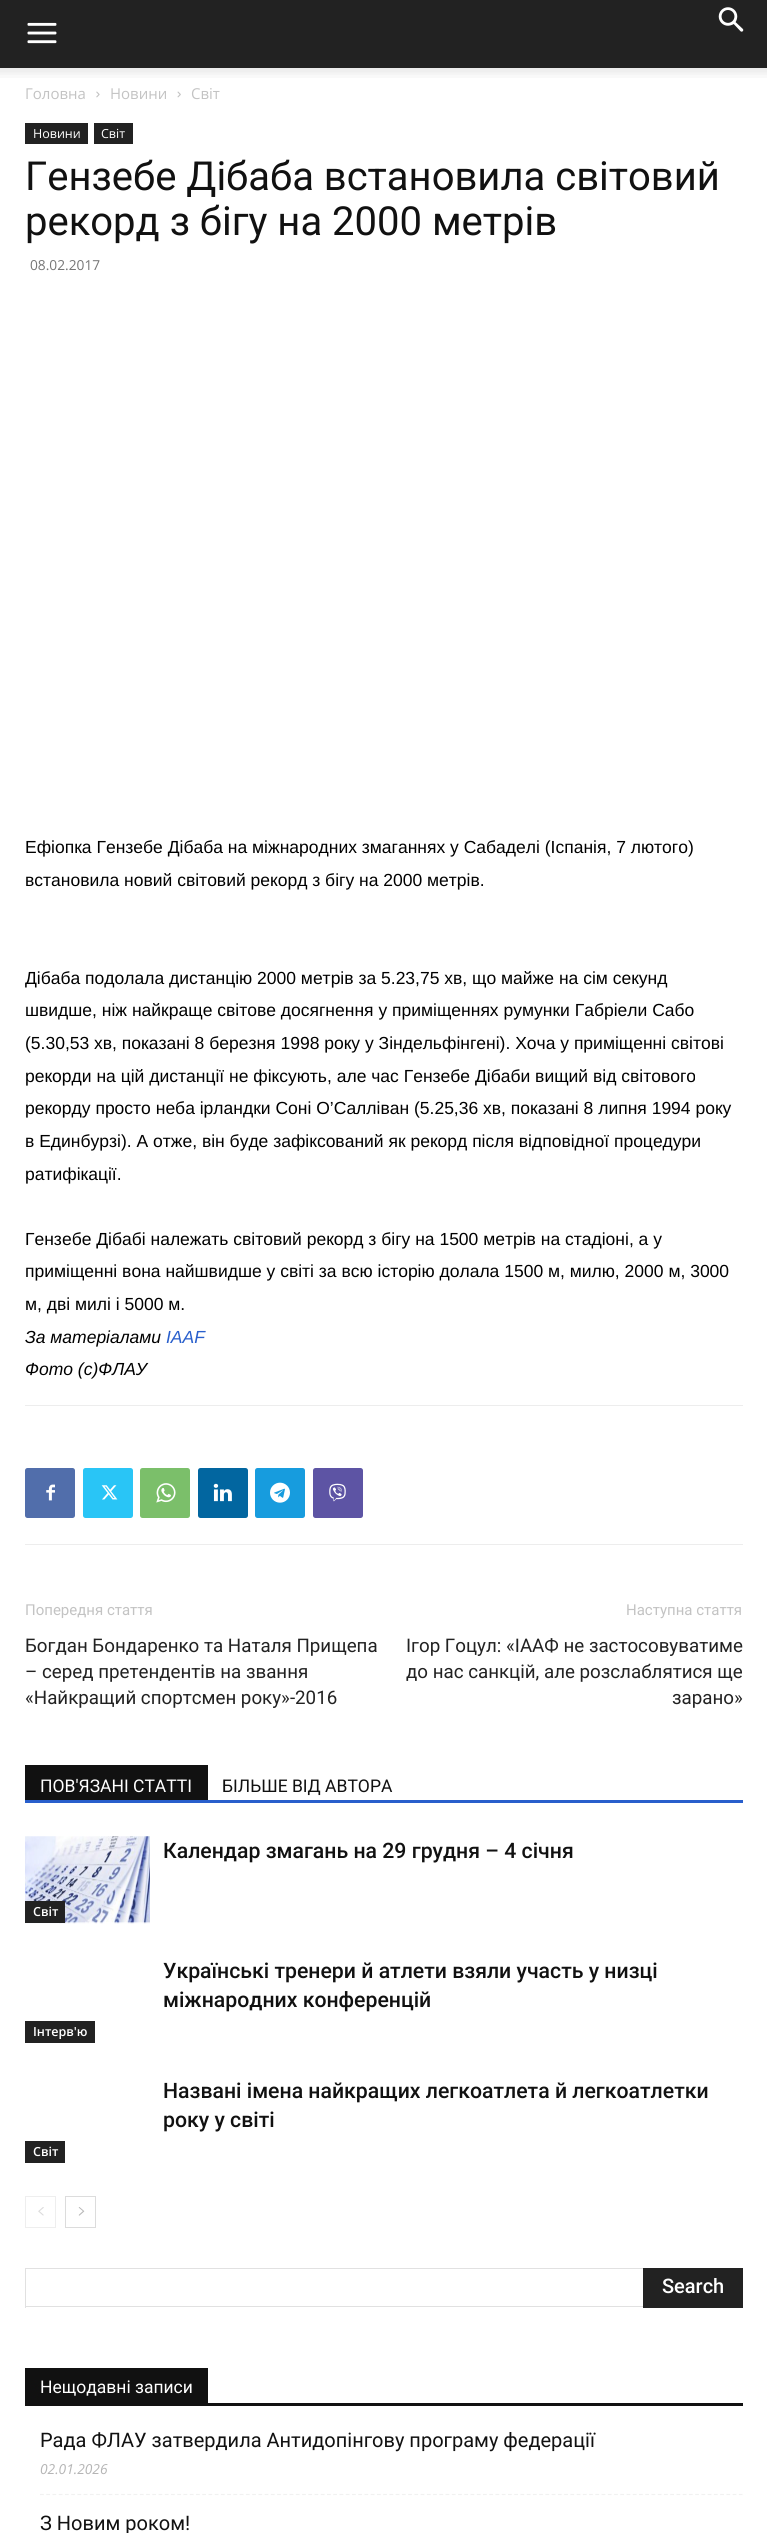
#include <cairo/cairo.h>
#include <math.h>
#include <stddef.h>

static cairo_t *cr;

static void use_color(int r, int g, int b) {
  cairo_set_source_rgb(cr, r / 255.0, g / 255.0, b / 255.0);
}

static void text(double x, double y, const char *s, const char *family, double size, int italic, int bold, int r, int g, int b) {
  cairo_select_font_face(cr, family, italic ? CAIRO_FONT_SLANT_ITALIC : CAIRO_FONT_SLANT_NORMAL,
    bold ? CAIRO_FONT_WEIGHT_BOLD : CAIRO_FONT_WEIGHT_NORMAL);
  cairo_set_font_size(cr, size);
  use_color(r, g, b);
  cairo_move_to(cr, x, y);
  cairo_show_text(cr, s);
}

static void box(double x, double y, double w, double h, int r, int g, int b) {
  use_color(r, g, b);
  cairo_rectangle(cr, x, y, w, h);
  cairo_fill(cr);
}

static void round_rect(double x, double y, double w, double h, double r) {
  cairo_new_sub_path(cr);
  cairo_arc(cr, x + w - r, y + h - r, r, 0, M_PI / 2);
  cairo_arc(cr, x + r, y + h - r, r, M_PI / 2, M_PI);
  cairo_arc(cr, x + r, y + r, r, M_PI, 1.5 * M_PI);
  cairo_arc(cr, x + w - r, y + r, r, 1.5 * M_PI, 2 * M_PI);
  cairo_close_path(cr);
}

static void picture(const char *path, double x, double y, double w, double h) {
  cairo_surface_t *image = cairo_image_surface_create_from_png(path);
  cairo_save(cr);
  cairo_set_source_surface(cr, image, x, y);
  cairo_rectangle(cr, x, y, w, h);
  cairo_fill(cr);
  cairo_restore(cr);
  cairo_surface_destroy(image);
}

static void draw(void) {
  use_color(255, 255, 255);
  cairo_paint(cr);
  box(0, 0, 767, 68, 34, 34, 34);
  picture("img_01.png", 27, 22, 30, 22);
  picture("img_02.png", 718, 7, 26, 25);
  picture("img_03.png", 0, 68, 767, 10);
  picture("img_04.png", 96, 91, 4, 7);
  picture("img_05.png", 177, 91, 4, 7);
  box(25, 123, 63, 21, 34, 34, 34);
  box(94, 123, 39, 21, 34, 34, 34);
  box(25, 1405, 718, 1, 237, 237, 237);
  box(25, 1544, 718, 1, 237, 237, 237);
  use_color(81, 110, 171);
  round_rect(25, 1468, 50, 50, 2.5);
  cairo_fill(cr);
  picture("img_06.png", 46, 1484, 9, 17);
  use_color(41, 197, 246);
  round_rect(83, 1468, 50, 50, 2.5);
  cairo_fill(cr);
  picture("img_07.png", 101, 1485, 17, 15);
  use_color(123, 191, 106);
  round_rect(140, 1468, 50, 50, 2.5);
  cairo_fill(cr);
  picture("img_08.png", 156, 1483, 20, 20);
  use_color(2, 102, 160);
  round_rect(198, 1468, 50, 50, 2.5);
  cairo_fill(cr);
  picture("img_09.png", 213, 1483, 19, 19);
  use_color(23, 156, 222);
  round_rect(255, 1468, 50, 50, 2.5);
  cairo_fill(cr);
  picture("img_10.png", 270, 1482, 20, 21);
  use_color(93, 84, 164);
  round_rect(313, 1468, 50, 50, 2.5);
  cairo_fill(cr);
  picture("img_11.png", 329, 1483, 17, 19);
  box(25, 1800, 718, 3, 41, 95, 204);
  box(25, 1765, 183, 35, 17, 17, 17);
  picture("img_12.png", 25, 1836, 125, 88);
  box(25, 1901, 40, 22, 34, 34, 34);
  box(25, 2021, 70, 22, 34, 34, 34);
  box(25, 2141, 40, 22, 34, 34, 34);
  cairo_rectangle(cr, 25.5, 2196.5, 30, 31);
  use_color(238, 238, 238);
  cairo_set_line_width(cr, 1);
  cairo_stroke(cr);
  picture("img_13.png", 38, 2207, 6, 9);
  cairo_rectangle(cr, 65.5, 2196.5, 30, 31);
  use_color(220, 220, 220);
  cairo_stroke(cr);
  picture("img_14.png", 78, 2207, 7, 9);
  box(25, 2268, 618, 1, 225, 225, 225);
  box(25, 2306, 618, 1, 225, 225, 225);
  box(25, 2268, 1, 40, 225, 225, 225);
  box(643, 2268, 100, 40, 34, 34, 34);
  box(25, 2403, 718, 3, 17, 17, 17);
  box(25, 2368, 183, 35, 17, 17, 17);
  cairo_new_path(cr);
  cairo_move_to(cr, 40, 2494.5);
  cairo_line_to(cr, 742.5, 2494.5);
  use_color(241, 241, 241);
  cairo_set_line_width(cr, 1.2);
  cairo_set_dash(cr, (double[]){3.75, 2.49}, 2, 0);
  cairo_stroke(cr);
  text(25, 99, "Головна", "Open Sans", 15, 0, 0, 195, 195, 195);
  text(110, 99, "Новини", "Open Sans", 15, 0, 0, 195, 195, 195);
  text(191, 99, "Світ", "Open Sans", 15, 0, 0, 195, 195, 195);
  text(33, 138, "Новини", "Open Sans", 12.5, 0, 0, 255, 255, 255);
  text(101, 138, "Світ", "Open Sans", 12.5, 0, 0, 255, 255, 255);
  text(25, 190, "Гензебе Дібаба встановила світовий", "Roboto", 40, 0, 0, 17, 17, 17);
  text(25, 235, "рекорд з бігу на 2000 метрів", "Roboto", 40, 0, 0, 17, 17, 17);
  text(30, 270, "08.02.2017", "Open Sans", 13.75, 0, 0, 118, 118, 118);
  text(25, 853, "Ефіопка Гензебе Дібаба на міжнародних змаганнях у Сабаделі (Іспанія, 7 лютого)", "Liberation Sans", 17.5, 0, 0, 0, 0, 0);
  text(25, 886, "встановила новий світовий рекорд з бігу на 2000 метрів.", "Liberation Sans", 17.5, 0, 0, 0, 0, 0);
  text(25, 984, "Дібаба подолала дистанцію 2000 метрів за 5.23,75 хв, що майже на сім секунд", "Liberation Sans", 17.5, 0, 0, 0, 0, 0);
  text(25, 1016, "швидше, ніж найкраще світове досягнення у приміщеннях румунки Габріели Сабо", "Liberation Sans", 17.5, 0, 0, 0, 0, 0);
  text(25, 1049, "(5.30,53 хв, показані 8 березня 1998 року у Зіндельфінгені). Хоча у приміщенні світові", "Liberation Sans", 17.5, 0, 0, 0, 0, 0);
  text(25, 1082, "рекорди на цій дистанції не фіксують, але час Гензебе Дібаби вищий від світового", "Liberation Sans", 17.5, 0, 0, 0, 0, 0);
  text(25, 1114, "рекорду просто неба ірландки Соні О’Салліван (5.25,36 хв, показані 8 липня 1994 року", "Liberation Sans", 17.5, 0, 0, 0, 0, 0);
  text(25, 1147, "в Единбурзі). А отже, він буде зафіксований як рекорд після відповідної процедури", "Liberation Sans", 17.5, 0, 0, 0, 0, 0);
  text(25, 1180, "ратифікації.", "Liberation Sans", 17.5, 0, 0, 0, 0, 0);
  text(25, 1245, "Гензебе Дібабі належать світовий рекорд з бігу на 1500 метрів на стадіоні, а у", "Liberation Sans", 17.5, 0, 0, 0, 0, 0);
  text(25, 1277, "приміщенні вона найшвидше у світі за всю історію долала 1500 м, милю, 2000 м, 3000", "Liberation Sans", 17.5, 0, 0, 0, 0, 0);
  text(25, 1310, "м, дві милі і 5000 м.", "Liberation Sans", 17.5, 0, 0, 0, 0, 0);
  text(25, 1343, "За матеріалами", "Liberation Sans", 17.5, 1, 0, 0, 0, 0);
  text(166, 1343, "IAAF", "Liberation Sans", 17.5, 1, 0, 41, 95, 204);
  text(25, 1375, "Фото (с)ФЛАУ", "Liberation Sans", 17.5, 1, 0, 0, 0, 0);
  text(25, 1615, "Попередня стаття", "Roboto", 15, 0, 0, 195, 195, 195);
  text(25, 1652, "Богдан Бондаренко та Наталя Прищепа", "Roboto", 18.75, 0, 0, 34, 34, 34);
  text(25, 1678, "– серед претендентів на звання", "Roboto", 18.75, 0, 0, 34, 34, 34);
  text(25, 1704, "«Найкращий спортсмен року»-2016", "Roboto", 18.75, 0, 0, 34, 34, 34);
  text(626, 1615, "Наступна стаття", "Roboto", 15, 0, 0, 195, 195, 195);
  text(406, 1652, "Ігор Гоцул: «ІААФ не застосовуватиме", "Roboto", 18.75, 0, 0, 34, 34, 34);
  text(406, 1678, "до нас санкцій, але розслаблятися ще", "Roboto", 18.75, 0, 0, 34, 34, 34);
  text(672, 1704, "зарано»", "Roboto", 18.75, 0, 0, 34, 34, 34);
  text(40, 1792, "ПОВ'ЯЗАНІ СТАТТІ", "Roboto", 17.5, 0, 0, 255, 255, 255);
  text(222, 1792, "БІЛЬШЕ ВІД АВТОРА", "Roboto", 17.5, 0, 0, 17, 17, 17);
  text(163, 1858, "Календар змагань на 29 грудня – 4 січня", "Roboto Medium", 21.25, 0, 0, 17, 17, 17);
  text(33, 1916, "Світ", "Open Sans SemiBold", 12.5, 0, 0, 255, 255, 255);
  text(163, 1978, "Українські тренери й атлети взяли участь у низці", "Roboto Medium", 21.25, 0, 0, 17, 17, 17);
  text(163, 2007, "міжнародних конференцій", "Roboto Medium", 21.25, 0, 0, 17, 17, 17);
  text(33, 2036, "Інтерв'ю", "Open Sans SemiBold", 12.5, 0, 0, 255, 255, 255);
  text(163, 2098, "Названі імена найкращих легкоатлета й легкоатлетки", "Roboto Medium", 21.25, 0, 0, 17, 17, 17);
  text(163, 2127, "року у світі", "Roboto Medium", 21.25, 0, 0, 17, 17, 17);
  text(33, 2156, "Світ", "Open Sans SemiBold", 12.5, 0, 0, 255, 255, 255);
  text(662, 2293, "Search", "Roboto Medium", 20, 0, 0, 255, 255, 255);
  text(40, 2393, "Нещодавні записи", "Roboto", 17.5, 0, 0, 255, 255, 255);
  text(40, 2447, "Рада ФЛАУ затвердила Антидопінгову програму федерації", "Roboto", 20, 0, 0, 17, 17, 17);
  text(40, 2474, "02.01.2026", "Open Sans", 13.75, 1, 0, 181, 181, 181);
  text(40, 2530, "З Новим роком!", "Roboto", 20, 0, 0, 17, 17, 17);
}

int main(void) {
  cairo_surface_t *surface = cairo_image_surface_create(CAIRO_FORMAT_RGB24, 767, 2533);
  cr = cairo_create(surface);
  cairo_font_options_t *options = cairo_font_options_create();
  cairo_font_options_set_hint_metrics(options, CAIRO_HINT_METRICS_OFF);
  cairo_font_options_set_hint_style(options, CAIRO_HINT_STYLE_NONE);
  cairo_set_font_options(cr, options);
  cairo_set_miter_limit(cr, 4);
  draw();
  cairo_surface_write_to_png(surface, "out.png");
  cairo_font_options_destroy(options);
  cairo_destroy(cr);
  cairo_surface_destroy(surface);
  return 0;
}
